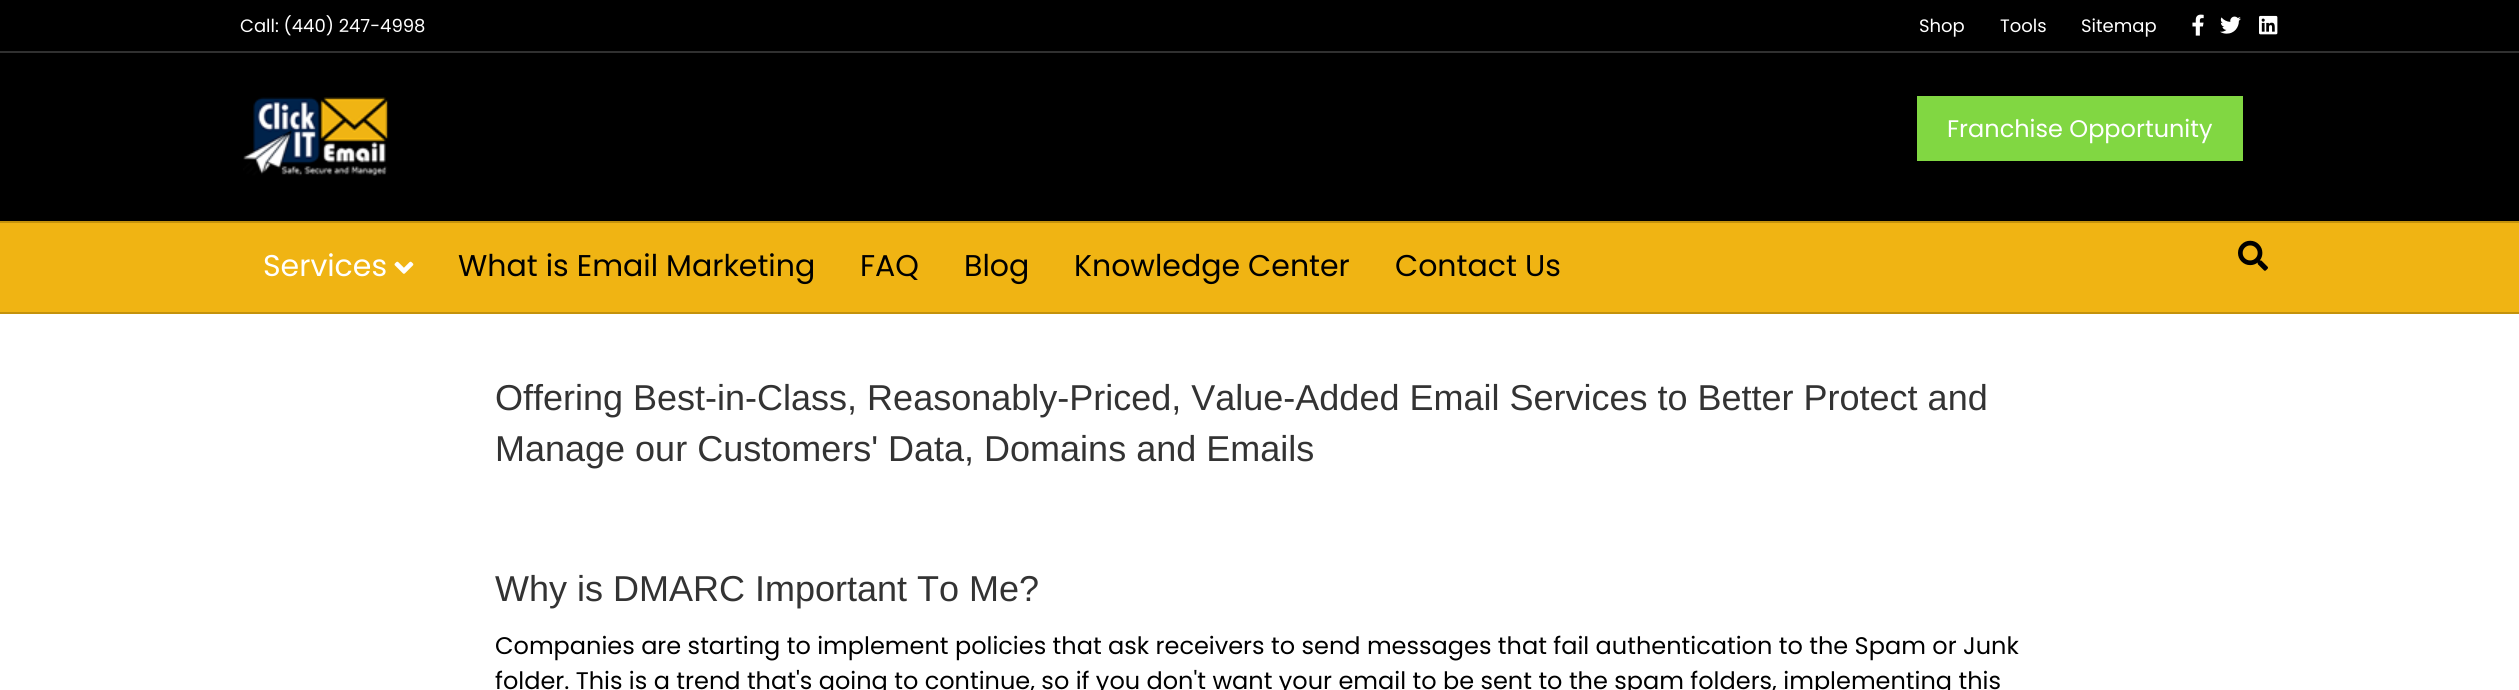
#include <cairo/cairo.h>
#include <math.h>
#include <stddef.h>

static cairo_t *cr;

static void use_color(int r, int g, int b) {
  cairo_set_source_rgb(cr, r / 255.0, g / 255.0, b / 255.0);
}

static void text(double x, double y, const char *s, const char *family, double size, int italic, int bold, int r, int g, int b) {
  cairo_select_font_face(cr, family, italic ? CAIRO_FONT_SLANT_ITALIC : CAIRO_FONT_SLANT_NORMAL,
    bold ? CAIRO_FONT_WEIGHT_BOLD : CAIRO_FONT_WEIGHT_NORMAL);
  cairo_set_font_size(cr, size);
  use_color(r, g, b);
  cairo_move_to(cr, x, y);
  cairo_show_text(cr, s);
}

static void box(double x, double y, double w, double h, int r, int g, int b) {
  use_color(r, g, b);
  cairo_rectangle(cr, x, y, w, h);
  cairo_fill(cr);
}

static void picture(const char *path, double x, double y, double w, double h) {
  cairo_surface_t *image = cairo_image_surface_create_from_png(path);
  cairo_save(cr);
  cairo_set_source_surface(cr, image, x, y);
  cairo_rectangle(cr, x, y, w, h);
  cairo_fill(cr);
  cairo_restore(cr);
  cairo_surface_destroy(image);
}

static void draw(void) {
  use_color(0, 0, 0);
  cairo_paint(cr);
  box(0, 51, 2519, 2, 48, 48, 48);
  picture("img_01.png", 2192, 14, 12, 22);
  picture("img_02.png", 2220, 16, 21, 18);
  picture("img_03.png", 2259, 15, 19, 20);
  picture("img_04.png", 243, 97, 146, 79);
  box(1917, 96, 326, 65, 129, 215, 66);
  box(0, 223, 2519, 89, 240, 180, 19);
  box(0, 221, 2519, 2, 196, 146, 12);
  box(0, 312, 2519, 2, 196, 146, 12);
  picture("img_05.png", 394, 261, 20, 13);
  picture("img_06.png", 2238, 240, 30, 31);
  box(0, 314, 2519, 376, 255, 255, 255);
  text(240, 32, "Call: (440) 247-4998", "Poppins", 18, 0, 0, 255, 255, 255);
  text(1919, 32, "Shop", "Poppins", 18, 0, 0, 255, 255, 255);
  text(2000, 32, "Tools", "Poppins", 18, 0, 0, 255, 255, 255);
  text(2081, 32, "Sitemap", "Poppins", 18, 0, 0, 255, 255, 255);
  text(1947, 137, "Franchise Opportunity", "Poppins", 24, 0, 0, 255, 255, 255);
  text(263, 276, "Services", "Poppins", 30, 0, 0, 255, 255, 255);
  text(458, 276, "What is Email Marketing", "Poppins", 30, 0, 0, 0, 0, 0);
  text(860, 276, "FAQ", "Poppins", 30, 0, 0, 0, 0, 0);
  text(964, 276, "Blog", "Poppins", 30, 0, 0, 0, 0, 0);
  text(1074, 276, "Knowledge Center", "Poppins", 30, 0, 0, 0, 0, 0);
  text(1395, 276, "Contact Us", "Poppins", 30, 0, 0, 0, 0, 0);
  text(495, 410, "Offering Best-in-Class, Reasonably-Priced, Value-Added Email Services to Better Protect and", "Liberation Sans", 36, 0, 0, 51, 51, 51);
  text(495, 461, "Manage our Customers' Data, Domains and Emails", "Liberation Sans", 36, 0, 0, 51, 51, 51);
  text(495, 601, "Why is DMARC Important To Me?", "Liberation Sans", 36, 0, 0, 51, 51, 51);
  text(495, 654, "Companies are starting to implement policies that ask receivers to send messages that fail authentication to the Spam or Junk", "Poppins", 24, 0, 0, 0, 0, 0);
  text(495, 689, "folder. This is a trend that's going to continue, so if you don't want your email to be sent to the spam folders, implementing this", "Poppins", 24, 0, 0, 0, 0, 0);
}

int main(void) {
  cairo_surface_t *surface = cairo_image_surface_create(CAIRO_FORMAT_RGB24, 2519, 690);
  cr = cairo_create(surface);
  cairo_font_options_t *options = cairo_font_options_create();
  cairo_font_options_set_hint_metrics(options, CAIRO_HINT_METRICS_OFF);
  cairo_font_options_set_hint_style(options, CAIRO_HINT_STYLE_NONE);
  cairo_set_font_options(cr, options);
  cairo_set_miter_limit(cr, 4);
  draw();
  cairo_surface_write_to_png(surface, "out.png");
  cairo_font_options_destroy(options);
  cairo_destroy(cr);
  cairo_surface_destroy(surface);
  return 0;
}
